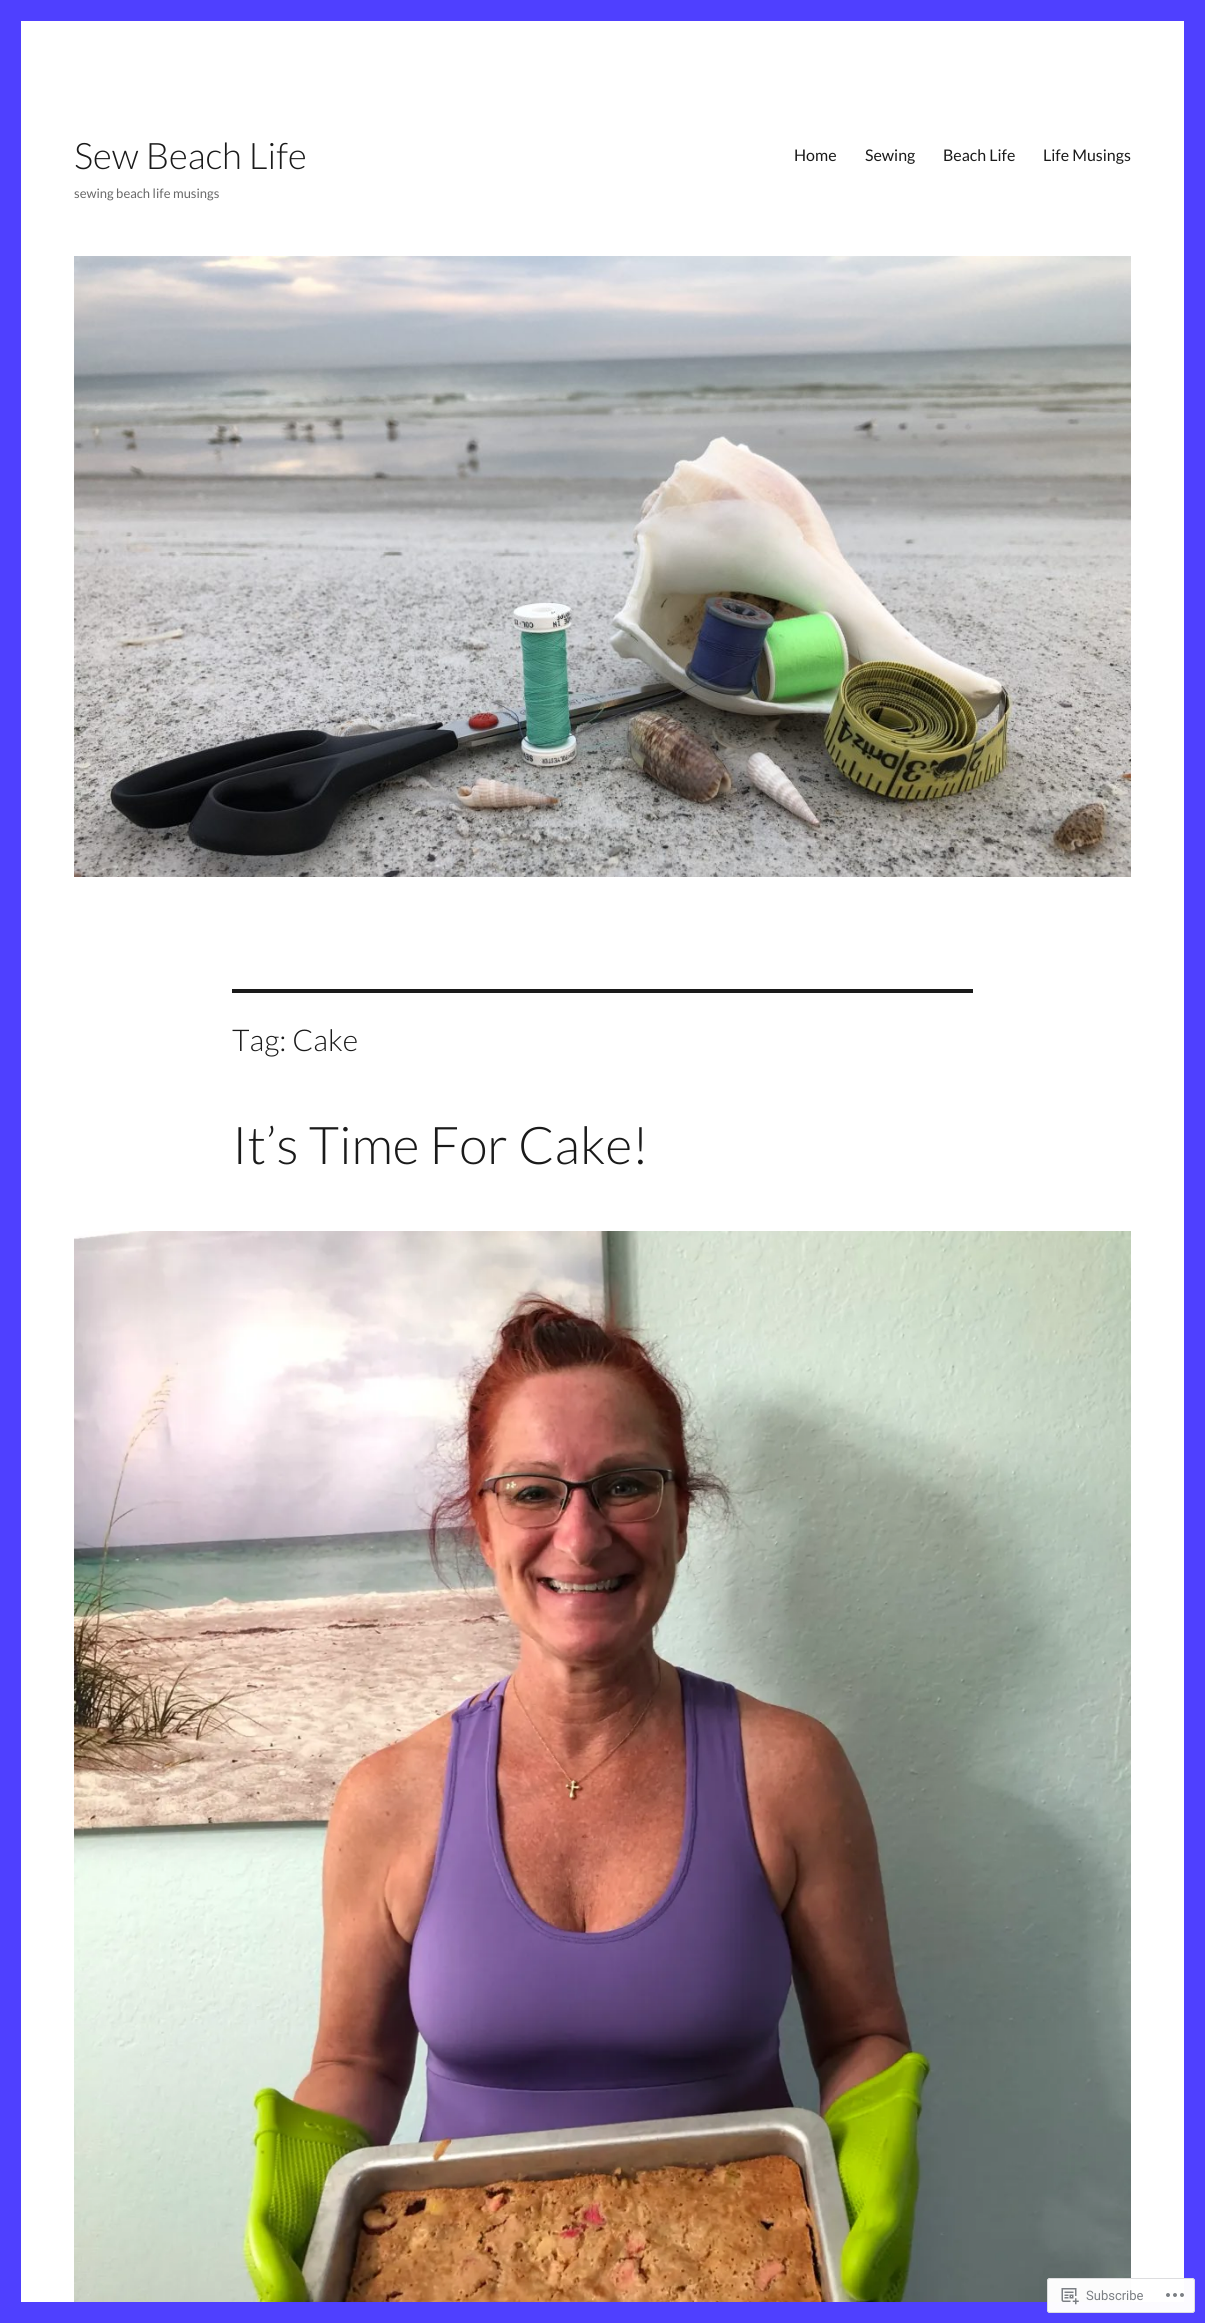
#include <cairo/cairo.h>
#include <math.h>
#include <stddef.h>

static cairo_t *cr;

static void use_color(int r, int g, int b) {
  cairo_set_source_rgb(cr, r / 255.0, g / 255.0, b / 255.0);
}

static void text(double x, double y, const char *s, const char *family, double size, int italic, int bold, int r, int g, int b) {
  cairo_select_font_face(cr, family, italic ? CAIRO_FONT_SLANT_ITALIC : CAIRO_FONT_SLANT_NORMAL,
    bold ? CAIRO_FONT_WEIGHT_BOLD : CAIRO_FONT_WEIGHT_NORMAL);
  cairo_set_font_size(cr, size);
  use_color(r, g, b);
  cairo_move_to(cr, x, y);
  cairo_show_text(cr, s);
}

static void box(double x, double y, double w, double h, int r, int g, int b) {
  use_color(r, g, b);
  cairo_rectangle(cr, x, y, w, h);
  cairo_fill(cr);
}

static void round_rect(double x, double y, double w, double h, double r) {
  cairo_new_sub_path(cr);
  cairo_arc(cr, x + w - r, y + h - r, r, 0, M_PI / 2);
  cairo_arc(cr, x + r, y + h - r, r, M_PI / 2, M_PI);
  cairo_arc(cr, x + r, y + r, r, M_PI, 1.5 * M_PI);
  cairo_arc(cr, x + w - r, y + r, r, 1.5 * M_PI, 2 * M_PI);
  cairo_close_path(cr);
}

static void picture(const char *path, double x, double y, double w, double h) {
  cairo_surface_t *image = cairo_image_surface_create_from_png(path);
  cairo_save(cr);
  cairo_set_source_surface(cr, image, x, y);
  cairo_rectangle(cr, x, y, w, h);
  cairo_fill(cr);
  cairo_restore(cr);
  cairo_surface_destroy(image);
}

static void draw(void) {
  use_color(79, 64, 255);
  cairo_paint(cr);
  box(21, 21, 1163, 2281, 255, 255, 255);
  picture("img_01.png", 74, 256, 1057, 621);
  box(232, 989, 741, 4, 26, 26, 26);
  picture("img_02.png", 74, 1231, 1057, 1071);
  cairo_set_source_rgba(cr, 1, 1, 1, 0.98);
  round_rect(1047, 2278, 148, 35, 3);
  cairo_fill(cr);
  round_rect(1047.5, 2278.5, 147, 34, 2.5);
  cairo_set_source_rgba(cr, 0.863, 0.863, 0.871, 0.98);
  cairo_set_line_width(cr, 1);
  cairo_stroke(cr);
  picture("img_03.png", 1061, 2288, 18, 17);
  picture("img_04.png", 1166, 2293, 18, 4);
  text(74, 169, "Sew Beach Life", "Lato Light", 36.5, 0, 0, 26, 26, 26);
  text(74, 198, "sewing beach life musings", "Lato", 13, 0, 0, 104, 104, 104);
  text(794, 161, "Home", "Lato", 16, 0, 0, 26, 26, 26);
  text(865, 161, "Sewing", "Lato", 16, 0, 0, 26, 26, 26);
  text(943, 161, "Beach Life", "Lato", 16, 0, 0, 26, 26, 26);
  text(1043, 161, "Life Musings", "Lato", 16, 0, 0, 26, 26, 26);
  text(232, 1051, "Tag: Cake", "Lato Light", 30, 0, 0, 26, 26, 26);
  text(232, 1164, "It’s Time For Cake!", "Lato Light", 52, 0, 0, 26, 26, 26);
  text(1086, 2300, "Subscribe", "Roboto", 13, 0, 0, 123, 127, 132);
}

int main(void) {
  cairo_surface_t *surface = cairo_image_surface_create(CAIRO_FORMAT_RGB24, 1205, 2323);
  cr = cairo_create(surface);
  cairo_font_options_t *options = cairo_font_options_create();
  cairo_font_options_set_hint_metrics(options, CAIRO_HINT_METRICS_OFF);
  cairo_font_options_set_hint_style(options, CAIRO_HINT_STYLE_NONE);
  cairo_set_font_options(cr, options);
  cairo_set_miter_limit(cr, 4);
  draw();
  cairo_surface_write_to_png(surface, "out.png");
  cairo_font_options_destroy(options);
  cairo_destroy(cr);
  cairo_surface_destroy(surface);
  return 0;
}
